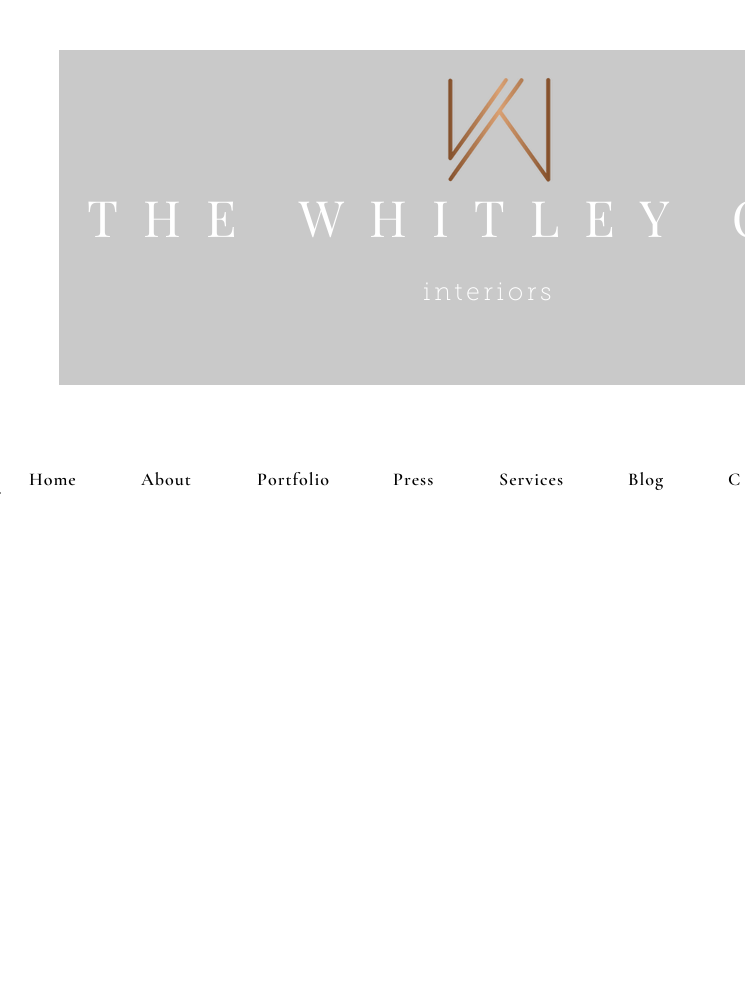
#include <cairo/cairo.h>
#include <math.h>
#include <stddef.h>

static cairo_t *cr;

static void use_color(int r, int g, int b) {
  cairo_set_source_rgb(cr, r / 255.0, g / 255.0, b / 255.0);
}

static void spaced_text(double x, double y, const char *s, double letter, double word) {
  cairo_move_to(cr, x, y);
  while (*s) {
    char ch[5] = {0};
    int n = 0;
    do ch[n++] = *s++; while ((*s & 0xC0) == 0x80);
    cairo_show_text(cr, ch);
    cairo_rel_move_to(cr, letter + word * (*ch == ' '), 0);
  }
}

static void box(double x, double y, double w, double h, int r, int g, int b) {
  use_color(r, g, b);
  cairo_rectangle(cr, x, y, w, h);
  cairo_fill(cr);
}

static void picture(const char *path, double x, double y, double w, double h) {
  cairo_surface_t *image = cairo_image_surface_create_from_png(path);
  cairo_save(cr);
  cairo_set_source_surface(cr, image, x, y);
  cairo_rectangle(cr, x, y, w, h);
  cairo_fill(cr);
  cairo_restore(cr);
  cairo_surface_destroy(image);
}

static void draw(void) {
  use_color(255, 255, 255);
  cairo_paint(cr);
  box(59, 50, 686, 335, 201, 201, 201);
  picture("img_01.png", 447, 77, 106, 105);
  box(0, 492, 1, 2, 139, 139, 139);
  cairo_select_font_face(cr, "Playfair Display", CAIRO_FONT_SLANT_NORMAL, CAIRO_FONT_WEIGHT_NORMAL);
  cairo_set_font_size(cr, 50);
  use_color(255, 255, 255);
  spaced_text(87, 237, "THE WHITLEY C", 25, 0);
  cairo_select_font_face(cr, "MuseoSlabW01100 Thin", CAIRO_FONT_SLANT_NORMAL, CAIRO_FONT_WEIGHT_NORMAL);
  cairo_set_font_size(cr, 25);
  spaced_text(423, 300, "interiors", 3.75, 0);
  cairo_select_font_face(cr, "Cormorant Garamond SemiBold", CAIRO_FONT_SLANT_NORMAL, CAIRO_FONT_WEIGHT_NORMAL);
  cairo_set_font_size(cr, 18);
  use_color(0, 0, 0);
  spaced_text(29, 485, "Home", 1, 0);
  spaced_text(141, 485, "About", 1, 0);
  spaced_text(257, 485, "Portfolio", 1, 0);
  spaced_text(393, 485, "Press", 1, 0);
  spaced_text(499, 485, "Services", 1, 0);
  spaced_text(628, 485, "Blog", 1, 0);
  spaced_text(728, 485, "C", 1, 0);
}

int main(void) {
  cairo_surface_t *surface = cairo_image_surface_create(CAIRO_FORMAT_RGB24, 745, 996);
  cr = cairo_create(surface);
  cairo_font_options_t *options = cairo_font_options_create();
  cairo_font_options_set_hint_metrics(options, CAIRO_HINT_METRICS_OFF);
  cairo_font_options_set_hint_style(options, CAIRO_HINT_STYLE_NONE);
  cairo_set_font_options(cr, options);
  cairo_set_miter_limit(cr, 4);
  draw();
  cairo_surface_write_to_png(surface, "out.png");
  cairo_font_options_destroy(options);
  cairo_destroy(cr);
  cairo_surface_destroy(surface);
  return 0;
}
